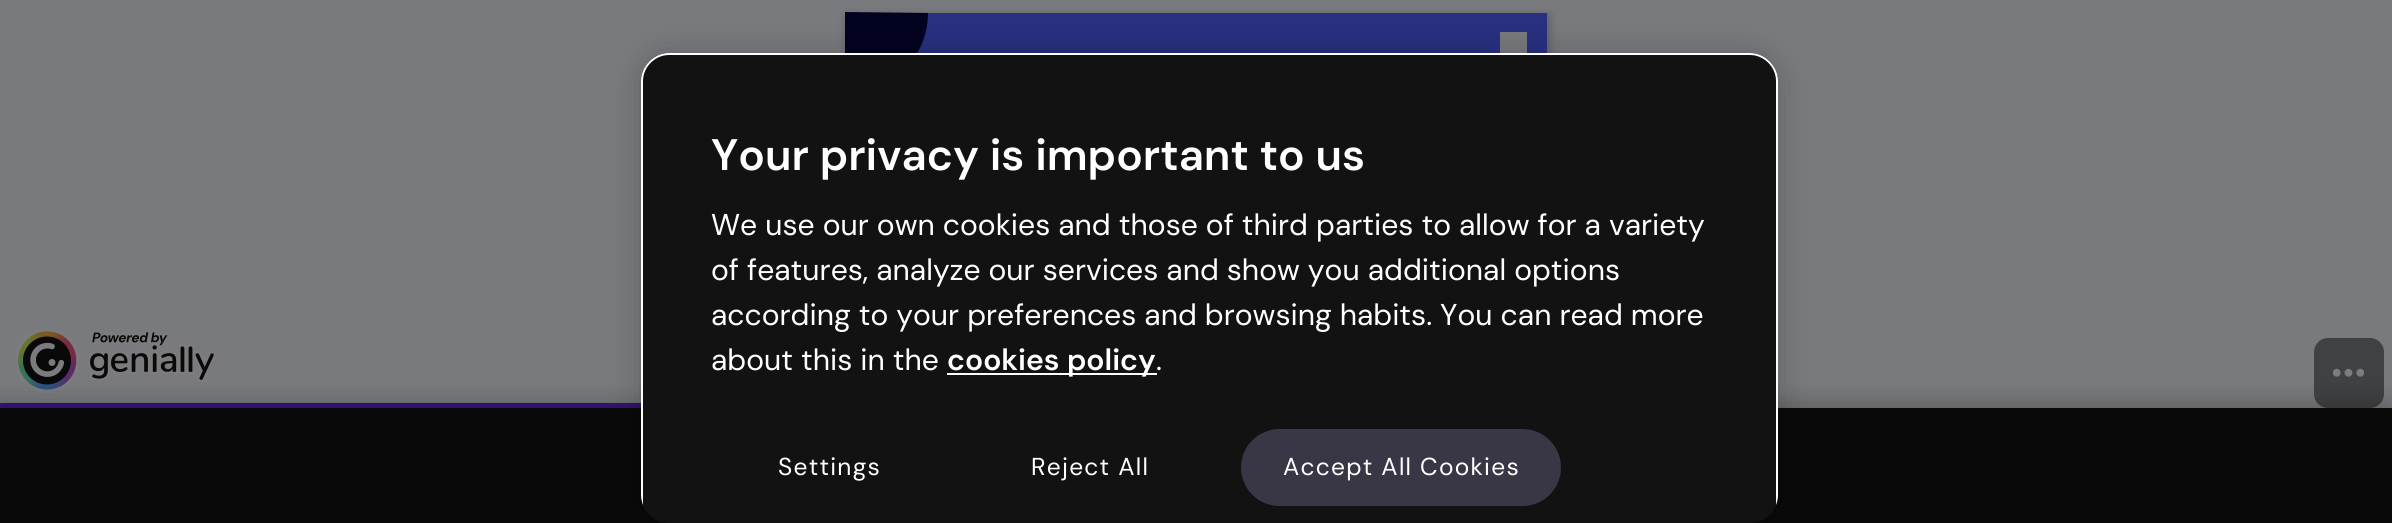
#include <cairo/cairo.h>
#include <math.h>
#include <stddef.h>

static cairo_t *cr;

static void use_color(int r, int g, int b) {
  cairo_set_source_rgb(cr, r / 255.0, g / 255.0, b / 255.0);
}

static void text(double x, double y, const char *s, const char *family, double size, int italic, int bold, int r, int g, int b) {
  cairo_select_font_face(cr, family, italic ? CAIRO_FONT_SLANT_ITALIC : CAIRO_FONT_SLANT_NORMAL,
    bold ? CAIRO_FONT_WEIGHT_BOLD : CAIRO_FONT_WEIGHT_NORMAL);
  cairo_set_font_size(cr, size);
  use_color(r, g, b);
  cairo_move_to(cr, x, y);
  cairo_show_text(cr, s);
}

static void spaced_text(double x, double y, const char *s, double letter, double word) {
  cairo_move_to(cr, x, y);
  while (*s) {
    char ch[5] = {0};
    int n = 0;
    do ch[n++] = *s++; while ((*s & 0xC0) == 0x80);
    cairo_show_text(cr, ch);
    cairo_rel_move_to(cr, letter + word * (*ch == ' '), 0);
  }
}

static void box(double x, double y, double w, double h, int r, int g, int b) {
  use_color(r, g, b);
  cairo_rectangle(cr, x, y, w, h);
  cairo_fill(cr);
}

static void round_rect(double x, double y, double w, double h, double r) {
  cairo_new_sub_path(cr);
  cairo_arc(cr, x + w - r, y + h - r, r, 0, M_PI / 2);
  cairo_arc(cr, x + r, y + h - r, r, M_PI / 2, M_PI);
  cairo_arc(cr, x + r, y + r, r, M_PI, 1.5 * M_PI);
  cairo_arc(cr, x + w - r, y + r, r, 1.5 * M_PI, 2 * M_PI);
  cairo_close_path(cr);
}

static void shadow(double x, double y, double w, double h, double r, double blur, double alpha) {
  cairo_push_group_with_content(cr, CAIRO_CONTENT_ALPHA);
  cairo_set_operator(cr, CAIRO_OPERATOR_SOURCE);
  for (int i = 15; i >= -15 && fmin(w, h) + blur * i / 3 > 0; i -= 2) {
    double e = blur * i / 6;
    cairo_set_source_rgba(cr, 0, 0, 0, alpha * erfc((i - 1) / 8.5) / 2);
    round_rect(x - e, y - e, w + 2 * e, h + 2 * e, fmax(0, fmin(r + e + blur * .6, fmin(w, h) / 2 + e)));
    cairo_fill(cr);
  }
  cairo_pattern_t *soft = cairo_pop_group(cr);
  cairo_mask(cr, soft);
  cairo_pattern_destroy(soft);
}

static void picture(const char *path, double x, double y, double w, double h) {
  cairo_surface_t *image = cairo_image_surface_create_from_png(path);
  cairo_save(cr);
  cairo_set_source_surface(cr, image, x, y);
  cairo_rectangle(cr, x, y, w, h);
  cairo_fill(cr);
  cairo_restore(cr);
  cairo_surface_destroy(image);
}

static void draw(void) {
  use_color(121, 122, 126);
  cairo_paint(cr);
  picture("img_01.png", 15, 328, 202, 65);
  use_color(0, 0, 0);
  shadow(847, 16, 702, 381, 0, 5, 0.25);
  box(845, 13, 702, 40, 41, 48, 128);
  cairo_set_source_rgba(cr, 0, 0, 0.114, 0.95);
  cairo_new_path(cr);
  cairo_move_to(cr, 928, 13);
  cairo_line_to(cr, 845, 12);
  cairo_line_to(cr, 845, 95);
  cairo_curve_to(cr, 890, 95, 928, 58, 928, 13);
  cairo_close_path(cr);
  cairo_fill(cr);
  box(1500, 32, 27, 21, 121, 122, 126);
  box(1778, 403, 614, 5, 125, 124, 126);
  cairo_set_source_rgba(cr, 0.035, 0.035, 0.035, 0.5);
  round_rect(2314, 338, 70, 70, 14);
  cairo_fill(cr);
  picture("img_02.png", 2333, 368, 31, 9);
  box(0, 403, 641, 5, 54, 21, 128);
  use_color(9, 9, 9);
  shadow(0, 404, 2392, 118, 0, 11.5, 0.3);
  box(0, 408, 2392, 115, 9, 9, 9);
  use_color(0, 0, 0);
  shadow(641, 53, 1137, 470, 28, 16, 0.2);
  use_color(18, 18, 18);
  round_rect(641, 53, 1137, 470, 28);
  cairo_fill(cr);
  use_color(255, 255, 255);
  cairo_new_path(cr);
  cairo_move_to(cr, 669, 53);
  cairo_curve_to(cr, 654, 53, 641, 66, 641, 81);
  cairo_line_to(cr, 641, 495);
  cairo_curve_to(cr, 641, 499, 642, 502, 643, 505);
  cairo_line_to(cr, 643, 81);
  cairo_curve_to(cr, 643, 67, 655, 55, 669, 55);
  cairo_line_to(cr, 1750, 55);
  cairo_curve_to(cr, 1764, 55, 1776, 67, 1776, 81);
  cairo_line_to(cr, 1776, 505);
  cairo_curve_to(cr, 1777, 502, 1778, 499, 1778, 495);
  cairo_line_to(cr, 1778, 81);
  cairo_curve_to(cr, 1778, 66, 1765, 53, 1750, 53);
  cairo_close_path(cr);
  cairo_fill(cr);
  box(947, 373, 210, 2, 255, 255, 255);
  use_color(57, 54, 69);
  round_rect(1240, 428, 322, 79, 39.5);
  cairo_fill_preserve(cr);
  use_color(18, 18, 18);
  cairo_stroke(cr);
  text(711, 170, "Your privacy is important to us", "DM Sans SemiBold", 44.1, 0, 0, 255, 255, 255);
  text(711, 235, "We use our own cookies and those of third parties to allow for a variety", "DM Sans", 30.1, 0, 0, 255, 255, 255);
  text(711, 280, "of features, analyze our services and show you additional options", "DM Sans", 30.1, 0, 0, 255, 255, 255);
  text(711, 325, "according to your preferences and browsing habits. You can read more", "DM Sans", 30.1, 0, 0, 255, 255, 255);
  text(711, 370, "about this in the", "DM Sans", 30.1, 0, 0, 255, 255, 255);
  text(947, 370, "cookies policy", "DM Sans SemiBold", 30.1, 0, 0, 255, 255, 255);
  text(1156, 370, ".", "DM Sans", 30.1, 0, 0, 255, 255, 255);
  cairo_set_font_size(cr, 24.5);
  spaced_text(778, 475, "Settings", 1.25, 0);
  spaced_text(1031, 475, "Reject All", 1.25, 0);
  spaced_text(1283, 475, "Accept All Cookies", 1.25, 0);
}

int main(void) {
  cairo_surface_t *surface = cairo_image_surface_create(CAIRO_FORMAT_RGB24, 2392, 523);
  cr = cairo_create(surface);
  cairo_font_options_t *options = cairo_font_options_create();
  cairo_font_options_set_hint_metrics(options, CAIRO_HINT_METRICS_OFF);
  cairo_font_options_set_hint_style(options, CAIRO_HINT_STYLE_NONE);
  cairo_set_font_options(cr, options);
  cairo_set_miter_limit(cr, 4);
  draw();
  cairo_surface_write_to_png(surface, "out.png");
  cairo_font_options_destroy(options);
  cairo_destroy(cr);
  cairo_surface_destroy(surface);
  return 0;
}
